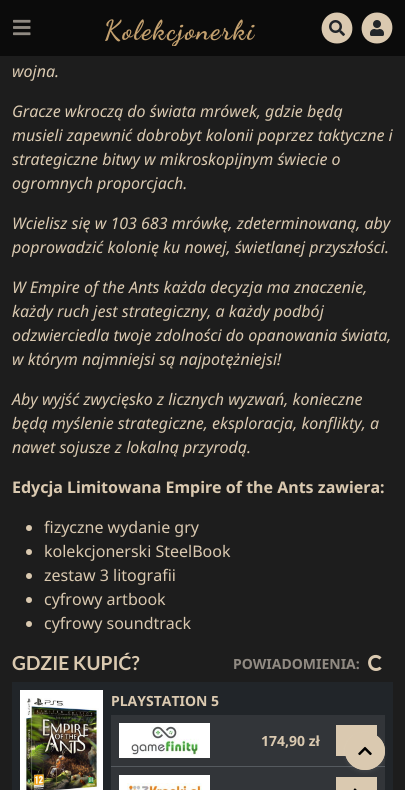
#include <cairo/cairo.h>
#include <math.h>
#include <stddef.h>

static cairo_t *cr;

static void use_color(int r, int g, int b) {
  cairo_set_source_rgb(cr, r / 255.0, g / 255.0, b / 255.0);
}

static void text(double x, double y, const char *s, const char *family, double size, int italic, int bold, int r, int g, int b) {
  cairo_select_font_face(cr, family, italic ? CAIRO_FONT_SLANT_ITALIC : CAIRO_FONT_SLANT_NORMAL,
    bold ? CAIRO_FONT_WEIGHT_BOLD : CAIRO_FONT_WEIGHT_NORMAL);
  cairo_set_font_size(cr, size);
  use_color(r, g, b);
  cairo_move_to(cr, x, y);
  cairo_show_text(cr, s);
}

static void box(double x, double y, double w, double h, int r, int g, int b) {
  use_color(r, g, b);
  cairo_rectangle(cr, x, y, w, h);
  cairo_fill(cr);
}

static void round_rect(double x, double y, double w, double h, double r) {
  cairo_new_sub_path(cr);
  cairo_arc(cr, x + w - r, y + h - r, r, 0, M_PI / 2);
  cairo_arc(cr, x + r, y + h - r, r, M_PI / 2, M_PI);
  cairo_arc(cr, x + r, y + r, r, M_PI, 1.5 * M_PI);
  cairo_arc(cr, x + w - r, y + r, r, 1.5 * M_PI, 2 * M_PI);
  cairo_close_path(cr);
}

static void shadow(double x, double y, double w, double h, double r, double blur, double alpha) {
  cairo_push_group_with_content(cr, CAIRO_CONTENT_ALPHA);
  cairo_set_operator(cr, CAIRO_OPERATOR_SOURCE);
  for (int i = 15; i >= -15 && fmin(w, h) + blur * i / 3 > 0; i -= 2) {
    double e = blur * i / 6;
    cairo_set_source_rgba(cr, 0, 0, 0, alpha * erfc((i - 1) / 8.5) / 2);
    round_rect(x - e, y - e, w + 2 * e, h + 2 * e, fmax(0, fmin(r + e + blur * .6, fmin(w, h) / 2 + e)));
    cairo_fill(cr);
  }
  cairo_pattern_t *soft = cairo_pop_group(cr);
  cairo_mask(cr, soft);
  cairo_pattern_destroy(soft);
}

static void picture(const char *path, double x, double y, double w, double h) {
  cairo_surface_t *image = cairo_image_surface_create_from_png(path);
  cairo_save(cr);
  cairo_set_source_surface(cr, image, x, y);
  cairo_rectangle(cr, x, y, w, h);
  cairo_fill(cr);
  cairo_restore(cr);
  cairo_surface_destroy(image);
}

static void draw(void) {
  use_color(29, 29, 29);
  cairo_paint(cr);
  cairo_set_source_rgba(cr, 0.039, 0.039, 0.039, 0.9);
  cairo_rectangle(cr, 0, 0, 405, 56);
  cairo_fill(cr);
  picture("img_01.png", 13, 19, 18, 17);
  picture("img_02.png", 105, 19, 150, 27);
  use_color(218, 201, 176);
  cairo_new_path(cr);
  cairo_move_to(cr, 337, 12.5);
  cairo_curve_to(cr, 322.5, 12.5, 316, 31.5, 327.5, 40.5);
  cairo_curve_to(cr, 330.5, 42.5, 333.5, 43.5, 337, 43.5);
  cairo_curve_to(cr, 340.5, 43.5, 343.5, 42.5, 346.5, 40.5);
  cairo_curve_to(cr, 358, 31.5, 351.5, 12.5, 337, 12.5);
  cairo_close_path(cr);
  cairo_fill(cr);
  picture("img_03.png", 329, 20, 16, 16);
  cairo_new_path(cr);
  cairo_move_to(cr, 377, 12.5);
  cairo_curve_to(cr, 362.5, 12.5, 356, 31.5, 367.5, 40.5);
  cairo_curve_to(cr, 370.5, 42.5, 373.5, 43.5, 377, 43.5);
  cairo_curve_to(cr, 391.5, 43.5, 398, 24.5, 386.5, 15.5);
  cairo_curve_to(cr, 383.5, 13.5, 380.5, 12.5, 377, 12.5);
  cairo_close_path(cr);
  cairo_fill(cr);
  picture("img_04.png", 370, 20, 14, 16);
  cairo_arc(cr, 29, 528, 3, 0, 2 * M_PI);
  cairo_fill(cr);
  cairo_arc(cr, 29, 552, 3, 0, 2 * M_PI);
  cairo_fill(cr);
  cairo_arc(cr, 29, 576, 3, 0, 2 * M_PI);
  cairo_fill(cr);
  cairo_arc(cr, 29, 600, 3, 0, 2 * M_PI);
  cairo_fill(cr);
  cairo_arc(cr, 29, 624, 3, 0, 2 * M_PI);
  cairo_fill(cr);
  cairo_new_path(cr);
  cairo_move_to(cr, 380.5, 667.5);
  cairo_curve_to(cr, 379.5, 669, 377.5, 669.5, 376, 669.5);
  cairo_curve_to(cr, 368.5, 669.5, 367, 658, 374.5, 656.5);
  cairo_curve_to(cr, 377, 656, 379, 657, 380.5, 658.5);
  cairo_set_line_width(cr, 3);
  cairo_stroke(cr);
  box(12, 682, 381, 108, 33, 37, 41);
  box(20, 690, 83, 100, 255, 255, 255);
  picture("img_05.png", 24, 698, 75, 92);
  box(111, 715, 274, 51, 50, 53, 57);
  box(119, 723, 91, 35, 255, 255, 255);
  picture("img_06.png", 131, 726, 68, 30);
  box(336, 725, 41, 31, 218, 201, 176);
  box(111, 767, 274, 23, 50, 53, 57);
  box(111, 766, 274, 1, 85, 90, 95);
  box(119, 775, 91, 15, 255, 255, 255);
  picture("img_07.png", 127, 783, 75, 7);
  box(336, 777, 41, 13, 218, 201, 176);
  picture("img_08.png", 353, 788, 4, 2);
  use_color(255, 255, 255);
  shadow(345, 734, 40, 38, 19, 2, 0.07);
  use_color(218, 201, 176);
  cairo_new_path(cr);
  cairo_move_to(cr, 365, 732);
  cairo_curve_to(cr, 376, 732, 385, 740.5, 385, 751);
  cairo_curve_to(cr, 385, 761.5, 376, 770, 365, 770);
  cairo_curve_to(cr, 354, 770, 345, 761.5, 345, 751);
  cairo_curve_to(cr, 345, 740.5, 354, 732, 365, 732);
  cairo_close_path(cr);
  cairo_fill(cr);
  cairo_new_path(cr);
  cairo_move_to(cr, 365, 732.5);
  cairo_curve_to(cr, 376, 732.5, 384.5, 741, 384.5, 751);
  cairo_curve_to(cr, 384.5, 761, 376, 769.5, 365, 769.5);
  cairo_curve_to(cr, 354, 769.5, 345.5, 761, 345.5, 751);
  cairo_curve_to(cr, 345.5, 741, 354, 732.5, 365, 732.5);
  cairo_close_path(cr);
  cairo_set_line_width(cr, 1);
  cairo_stroke(cr);
  picture("img_09.png", 358, 746, 14, 10);
  text(12, 77, "wojna.", "Noto Sans", 16, 1, 0, 218, 201, 176);
  text(12, 117, "Gracze wkroczą do świata mrówek, gdzie będą", "Noto Sans", 16, 1, 0, 218, 201, 176);
  text(12, 141, "musieli zapewnić dobrobyt kolonii poprzez taktyczne i", "Noto Sans", 16, 1, 0, 218, 201, 176);
  text(12, 165, "strategiczne bitwy w mikroskopijnym świecie o", "Noto Sans", 16, 1, 0, 218, 201, 176);
  text(12, 189, "ogromnych proporcjach.", "Noto Sans", 16, 1, 0, 218, 201, 176);
  text(12, 229, "Wcielisz się w 103 683 mrówkę, zdeterminowaną, aby", "Noto Sans", 16, 1, 0, 218, 201, 176);
  text(12, 253, "poprowadzić kolonię ku nowej, świetlanej przyszłości.", "Noto Sans", 16, 1, 0, 218, 201, 176);
  text(12, 293, "W Empire of the Ants każda decyzja ma znaczenie,", "Noto Sans", 16, 1, 0, 218, 201, 176);
  text(12, 317, "każdy ruch jest strategiczny, a każdy podbój", "Noto Sans", 16, 1, 0, 218, 201, 176);
  text(12, 341, "odzwierciedla twoje zdolności do opanowania świata,", "Noto Sans", 16, 1, 0, 218, 201, 176);
  text(12, 365, "w którym najmniejsi są najpotężniejsi!", "Noto Sans", 16, 1, 0, 218, 201, 176);
  text(12, 405, "Aby wyjść zwycięsko z licznych wyzwań, konieczne", "Noto Sans", 16, 1, 0, 218, 201, 176);
  text(12, 429, "będą myślenie strategiczne, eksploracja, konflikty, a", "Noto Sans", 16, 1, 0, 218, 201, 176);
  text(12, 453, "nawet sojusze z lokalną przyrodą.", "Noto Sans", 16, 1, 0, 218, 201, 176);
  text(12, 493, "Edycja Limitowana Empire of the Ants zawiera:", "Noto Sans", 16, 0, 1, 218, 201, 176);
  text(44, 533, "fizyczne wydanie gry", "Noto Sans", 16, 0, 0, 218, 201, 176);
  text(44, 557, "kolekcjonerski SteelBook", "Noto Sans", 16, 0, 0, 218, 201, 176);
  text(44, 581, "zestaw 3 litografii", "Noto Sans", 16, 0, 0, 218, 201, 176);
  text(44, 605, "cyfrowy artbook", "Noto Sans", 16, 0, 0, 218, 201, 176);
  text(44, 629, "cyfrowy soundtrack", "Noto Sans", 16, 0, 0, 218, 201, 176);
  text(12, 670, "GDZIE KUPIĆ?", "Lato", 19.25, 0, 1, 218, 201, 176);
  text(233, 669, "POWIADOMIENIA:", "Noto Sans", 14, 0, 1, 144, 138, 130);
  text(111, 706, "PLAYSTATION 5", "Noto Sans", 14, 0, 1, 218, 201, 176);
  text(261, 746, "174,90 zł", "Noto Sans", 14, 0, 1, 218, 201, 176);
}

int main(void) {
  cairo_surface_t *surface = cairo_image_surface_create(CAIRO_FORMAT_RGB24, 405, 790);
  cr = cairo_create(surface);
  cairo_font_options_t *options = cairo_font_options_create();
  cairo_font_options_set_hint_metrics(options, CAIRO_HINT_METRICS_OFF);
  cairo_font_options_set_hint_style(options, CAIRO_HINT_STYLE_NONE);
  cairo_set_font_options(cr, options);
  cairo_set_miter_limit(cr, 4);
  draw();
  cairo_surface_write_to_png(surface, "out.png");
  cairo_font_options_destroy(options);
  cairo_destroy(cr);
  cairo_surface_destroy(surface);
  return 0;
}
